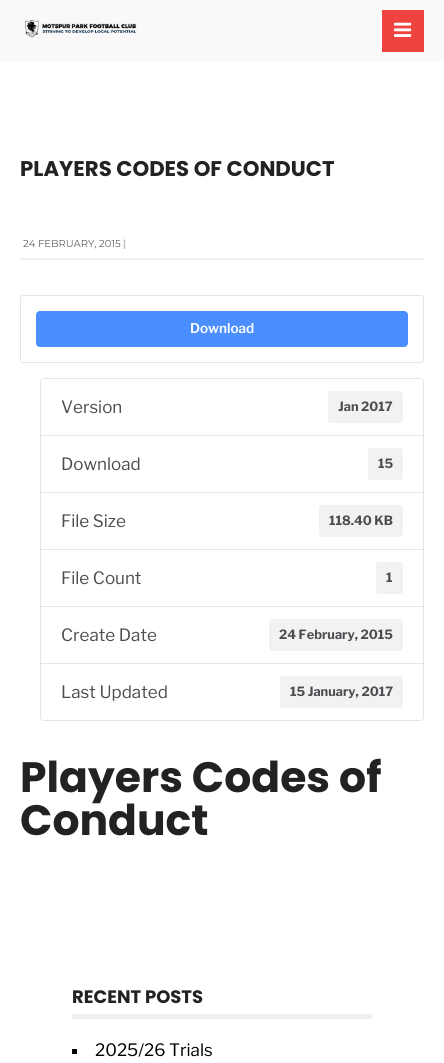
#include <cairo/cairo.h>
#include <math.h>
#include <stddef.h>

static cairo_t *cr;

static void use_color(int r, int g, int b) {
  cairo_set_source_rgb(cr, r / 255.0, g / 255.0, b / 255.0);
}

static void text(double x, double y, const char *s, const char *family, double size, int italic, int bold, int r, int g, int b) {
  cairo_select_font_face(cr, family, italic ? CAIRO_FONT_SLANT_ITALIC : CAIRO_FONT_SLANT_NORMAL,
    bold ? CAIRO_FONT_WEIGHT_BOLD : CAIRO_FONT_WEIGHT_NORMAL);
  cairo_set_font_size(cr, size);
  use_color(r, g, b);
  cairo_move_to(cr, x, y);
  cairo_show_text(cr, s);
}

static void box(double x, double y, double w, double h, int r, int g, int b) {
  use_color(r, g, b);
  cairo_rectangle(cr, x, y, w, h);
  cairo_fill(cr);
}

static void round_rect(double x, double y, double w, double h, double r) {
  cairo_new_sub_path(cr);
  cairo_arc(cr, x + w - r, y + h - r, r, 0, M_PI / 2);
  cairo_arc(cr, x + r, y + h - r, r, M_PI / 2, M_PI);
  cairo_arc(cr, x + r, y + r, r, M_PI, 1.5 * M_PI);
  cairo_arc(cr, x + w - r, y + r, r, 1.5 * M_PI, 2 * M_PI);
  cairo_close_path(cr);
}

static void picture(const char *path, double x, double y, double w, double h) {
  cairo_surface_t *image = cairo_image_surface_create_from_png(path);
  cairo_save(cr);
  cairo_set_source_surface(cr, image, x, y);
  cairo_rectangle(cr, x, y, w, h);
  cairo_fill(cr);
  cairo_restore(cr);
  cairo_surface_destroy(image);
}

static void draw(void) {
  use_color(255, 255, 255);
  cairo_paint(cr);
  box(0, 0, 444, 62, 249, 249, 249);
  picture("img_01.png", 25, 20, 112, 18);
  box(382, 10, 42, 42, 239, 67, 63);
  picture("img_02.png", 394, 22, 18, 15);
  box(20, 258, 404, 2, 239, 239, 239);
  round_rect(20.5, 295.5, 403, 67, 2.5);
  use_color(229, 229, 229);
  cairo_set_line_width(cr, 1);
  cairo_stroke(cr);
  use_color(74, 142, 255);
  round_rect(36, 311, 372, 36, 4);
  cairo_fill(cr);
  cairo_new_path(cr);
  cairo_move_to(cr, 44, 378.5);
  cairo_line_to(cr, 420, 378.5);
  cairo_curve_to(cr, 422, 378.5, 423.5, 380, 423.5, 382);
  cairo_line_to(cr, 423.5, 435.5);
  cairo_line_to(cr, 40.5, 435.5);
  cairo_line_to(cr, 40.5, 382);
  cairo_curve_to(cr, 40.5, 380, 42, 378.5, 44, 378.5);
  cairo_close_path(cr);
  use_color(229, 229, 229);
  cairo_stroke(cr);
  use_color(242, 242, 242);
  round_rect(328, 391, 75, 32, 3);
  cairo_fill(cr);
  cairo_rectangle(cr, 40.5, 435.5, 383, 57);
  use_color(229, 229, 229);
  cairo_stroke(cr);
  use_color(242, 242, 242);
  round_rect(368, 448, 35, 32, 3);
  cairo_fill(cr);
  cairo_rectangle(cr, 40.5, 492.5, 383, 57);
  use_color(229, 229, 229);
  cairo_stroke(cr);
  use_color(242, 242, 242);
  round_rect(319, 505, 84, 32, 3);
  cairo_fill(cr);
  cairo_rectangle(cr, 40.5, 549.5, 383, 57);
  use_color(229, 229, 229);
  cairo_stroke(cr);
  use_color(242, 242, 242);
  round_rect(376, 562, 27, 32, 3);
  cairo_fill(cr);
  cairo_rectangle(cr, 40.5, 606.5, 383, 57);
  use_color(229, 229, 229);
  cairo_stroke(cr);
  use_color(242, 242, 242);
  round_rect(269, 619, 134, 32, 3);
  cairo_fill(cr);
  use_color(255, 255, 255);
  cairo_new_path(cr);
  cairo_move_to(cr, 40.5, 663.5);
  cairo_line_to(cr, 423.5, 663.5);
  cairo_line_to(cr, 423.5, 717);
  cairo_curve_to(cr, 423.5, 719, 422, 720.5, 420, 720.5);
  cairo_line_to(cr, 44, 720.5);
  cairo_curve_to(cr, 42, 720.5, 40.5, 719, 40.5, 717);
  cairo_close_path(cr);
  cairo_fill_preserve(cr);
  use_color(229, 229, 229);
  cairo_stroke(cr);
  use_color(242, 242, 242);
  round_rect(280, 676, 123, 32, 3);
  cairo_fill(cr);
  box(72, 1014, 300, 5, 239, 239, 239);
  box(72, 1049, 5, 5, 0, 0, 0);
  text(20, 176, "PLAYERS CODES OF CONDUCT", "Poppins", 21.25, 0, 1, 34, 34, 34);
  text(23, 247, "24 FEBRUARY, 2015", "Montserrat", 10, 0, 0, 96, 96, 96);
  text(123, 247, "|", "Montserrat", 10, 0, 1, 191, 191, 191);
  text(190, 333, "Download", "Libre Franklin SemiBold", 13.5, 0, 0, 255, 255, 255);
  text(61, 413, "Version", "Libre Franklin", 17, 0, 0, 75, 77, 81);
  text(338, 411, "Jan 2017", "Libre Franklin", 12.75, 0, 1, 75, 77, 81);
  text(61, 470, "Download", "Libre Franklin", 17, 0, 0, 75, 77, 81);
  text(378, 468, "15", "Libre Franklin", 12.75, 0, 1, 75, 77, 81);
  text(61, 527, "File Size", "Libre Franklin", 17, 0, 0, 75, 77, 81);
  text(329, 525, "118.40 KB", "Libre Franklin", 12.75, 0, 1, 75, 77, 81);
  text(61, 584, "File Count", "Libre Franklin", 17, 0, 0, 75, 77, 81);
  text(386, 582, "1", "Libre Franklin", 12.75, 0, 1, 75, 77, 81);
  text(61, 641, "Create Date", "Libre Franklin", 17, 0, 0, 75, 77, 81);
  text(279, 639, "24 February, 2015", "Libre Franklin", 12.75, 0, 1, 75, 77, 81);
  text(61, 698, "Last Updated", "Libre Franklin", 17, 0, 0, 75, 77, 81);
  text(290, 696, "15 January, 2017", "Libre Franklin", 12.75, 0, 1, 75, 77, 81);
  text(20, 792, "Players Codes of", "Poppins", 42.5, 0, 1, 34, 34, 34);
  text(20, 835, "Conduct", "Poppins", 42.5, 0, 1, 34, 34, 34);
  text(72, 1003, "RECENT POSTS", "Poppins", 18, 0, 1, 34, 34, 34);
  text(95, 1056, "2025/26 Trials", "Libre Franklin", 17, 0, 0, 0, 0, 0);
}

int main(void) {
  cairo_surface_t *surface = cairo_image_surface_create(CAIRO_FORMAT_RGB24, 444, 1063);
  cr = cairo_create(surface);
  cairo_font_options_t *options = cairo_font_options_create();
  cairo_font_options_set_hint_metrics(options, CAIRO_HINT_METRICS_OFF);
  cairo_font_options_set_hint_style(options, CAIRO_HINT_STYLE_NONE);
  cairo_set_font_options(cr, options);
  cairo_set_miter_limit(cr, 4);
  draw();
  cairo_surface_write_to_png(surface, "out.png");
  cairo_font_options_destroy(options);
  cairo_destroy(cr);
  cairo_surface_destroy(surface);
  return 0;
}
